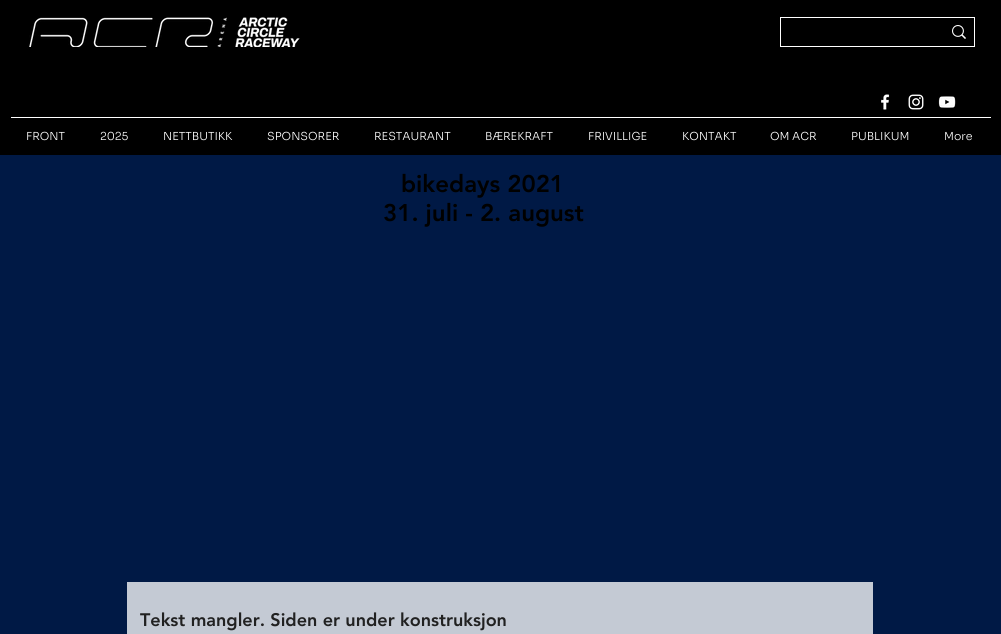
#include <cairo/cairo.h>
#include <math.h>
#include <stddef.h>

static cairo_t *cr;

static void use_color(int r, int g, int b) {
  cairo_set_source_rgb(cr, r / 255.0, g / 255.0, b / 255.0);
}

static void text(double x, double y, const char *s, const char *family, double size, int italic, int bold, int r, int g, int b) {
  cairo_select_font_face(cr, family, italic ? CAIRO_FONT_SLANT_ITALIC : CAIRO_FONT_SLANT_NORMAL,
    bold ? CAIRO_FONT_WEIGHT_BOLD : CAIRO_FONT_WEIGHT_NORMAL);
  cairo_set_font_size(cr, size);
  use_color(r, g, b);
  cairo_move_to(cr, x, y);
  cairo_show_text(cr, s);
}

static void box(double x, double y, double w, double h, int r, int g, int b) {
  use_color(r, g, b);
  cairo_rectangle(cr, x, y, w, h);
  cairo_fill(cr);
}

static void picture(const char *path, double x, double y, double w, double h) {
  cairo_surface_t *image = cairo_image_surface_create_from_png(path);
  cairo_save(cr);
  cairo_set_source_surface(cr, image, x, y);
  cairo_rectangle(cr, x, y, w, h);
  cairo_fill(cr);
  cairo_restore(cr);
  cairo_surface_destroy(image);
}

static void draw(void) {
  use_color(0, 25, 69);
  cairo_paint(cr);
  box(0, 0, 1001, 155, 0, 0, 0);
  picture("img_01.png", 29, 17, 271, 30);
  cairo_rectangle(cr, 780.5, 17.5, 194, 29);
  use_color(255, 255, 255);
  cairo_set_line_width(cr, 1);
  cairo_stroke(cr);
  picture("img_02.png", 952, 25, 14, 14);
  picture("img_03.png", 881, 94, 9, 16);
  picture("img_04.png", 908, 94, 16, 16);
  picture("img_05.png", 938, 96, 18, 12);
  box(11, 117, 980, 1, 255, 255, 255);
  box(127, 582, 746, 52, 196, 202, 212);
  text(26, 140, "FRONT", "Sora Light", 11, 0, 0, 255, 255, 255);
  text(100, 140, "2025", "Sora Light", 11, 0, 0, 255, 255, 255);
  text(163, 140, "NETTBUTIKK", "Sora Light", 11, 0, 0, 255, 255, 255);
  text(267, 140, "SPONSORER", "Sora Light", 11, 0, 0, 255, 255, 255);
  text(374, 140, "RESTAURANT", "Sora Light", 11, 0, 0, 255, 255, 255);
  text(485, 140, "BÆREKRAFT", "Sora Light", 11, 0, 0, 255, 255, 255);
  text(588, 140, "FRIVILLIGE", "Sora Light", 11, 0, 0, 255, 255, 255);
  text(682, 140, "KONTAKT", "Sora Light", 11, 0, 0, 255, 255, 255);
  text(770, 140, "OM ACR", "Sora Light", 11, 0, 0, 255, 255, 255);
  text(851, 140, "PUBLIKUM", "Sora Light", 11, 0, 0, 255, 255, 255);
  text(944, 140, "More", "Sora Light", 11, 0, 0, 255, 255, 255);
  text(401, 192, "bikedays 2021", "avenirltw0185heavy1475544 Black", 24, 0, 0, 0, 0, 0);
  text(383, 221, "31. juli - 2. august", "avenirltw0185heavy1475544 Black", 24, 0, 0, 0, 0, 0);
  text(140, 626, "Tekst mangler. Siden er under konstruksjon", "avenirltw0185heavy1475544 Black", 18, 0, 0, 33, 33, 33);
}

int main(void) {
  cairo_surface_t *surface = cairo_image_surface_create(CAIRO_FORMAT_RGB24, 1001, 634);
  cr = cairo_create(surface);
  cairo_font_options_t *options = cairo_font_options_create();
  cairo_font_options_set_hint_metrics(options, CAIRO_HINT_METRICS_OFF);
  cairo_font_options_set_hint_style(options, CAIRO_HINT_STYLE_NONE);
  cairo_set_font_options(cr, options);
  cairo_set_miter_limit(cr, 4);
  draw();
  cairo_surface_write_to_png(surface, "out.png");
  cairo_font_options_destroy(options);
  cairo_destroy(cr);
  cairo_surface_destroy(surface);
  return 0;
}
